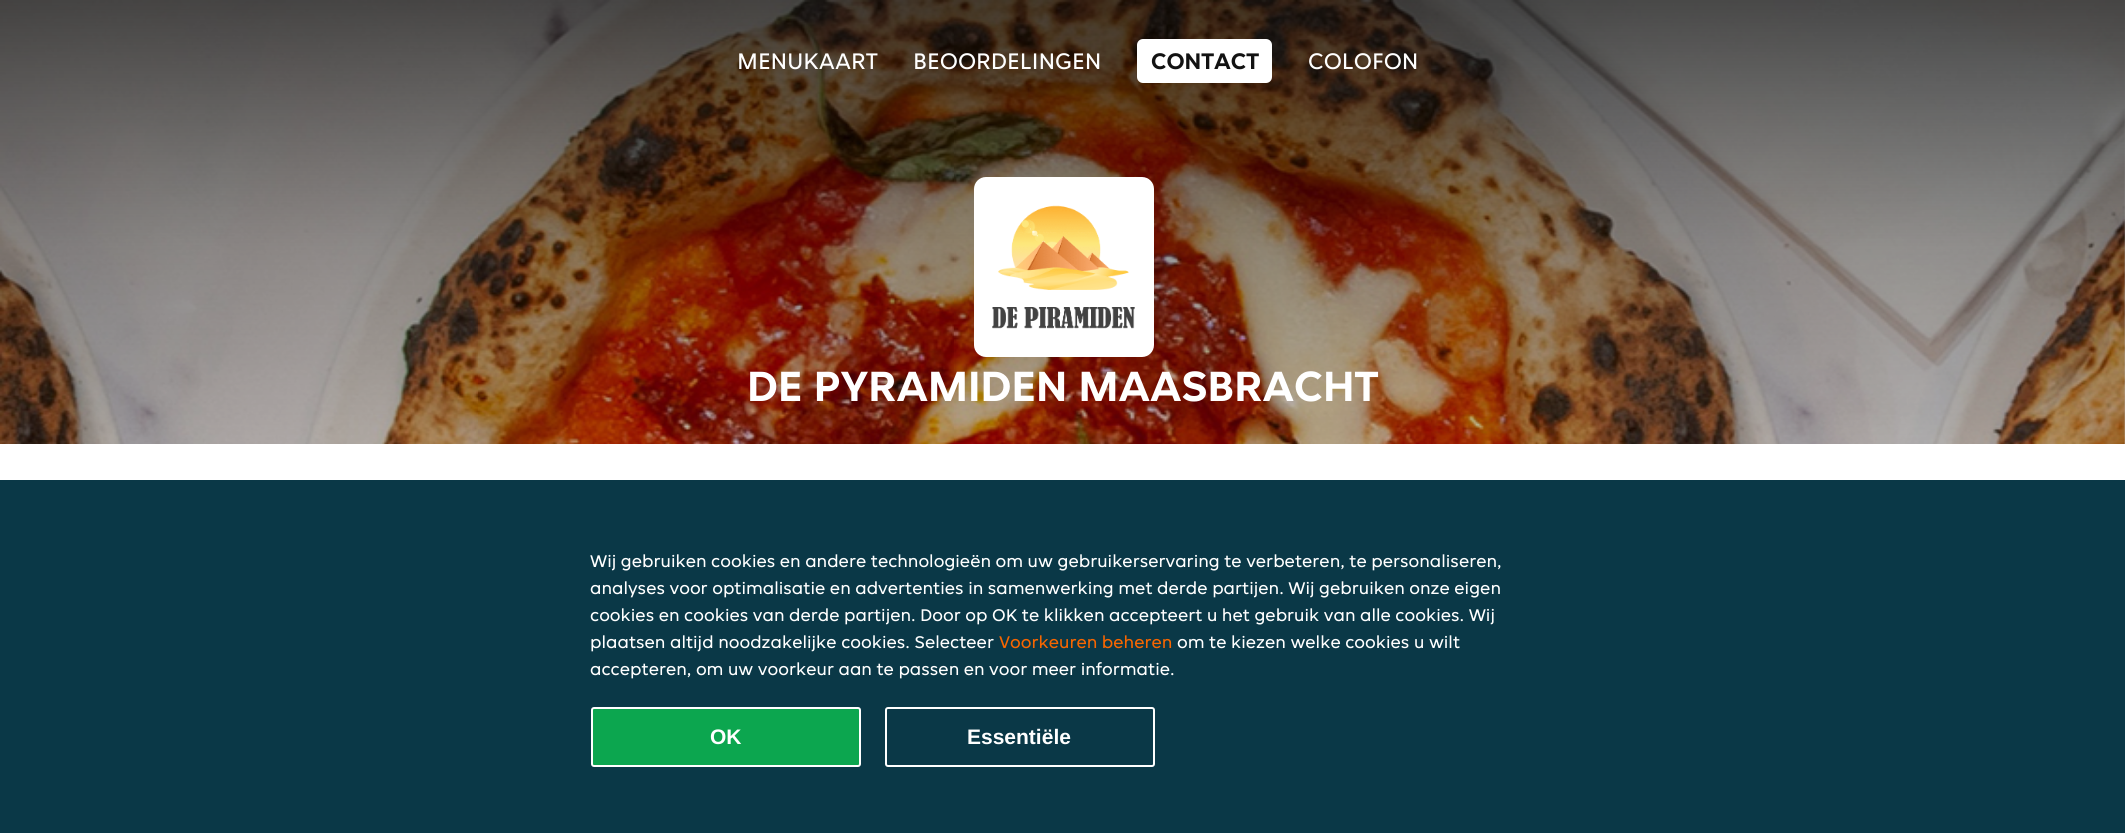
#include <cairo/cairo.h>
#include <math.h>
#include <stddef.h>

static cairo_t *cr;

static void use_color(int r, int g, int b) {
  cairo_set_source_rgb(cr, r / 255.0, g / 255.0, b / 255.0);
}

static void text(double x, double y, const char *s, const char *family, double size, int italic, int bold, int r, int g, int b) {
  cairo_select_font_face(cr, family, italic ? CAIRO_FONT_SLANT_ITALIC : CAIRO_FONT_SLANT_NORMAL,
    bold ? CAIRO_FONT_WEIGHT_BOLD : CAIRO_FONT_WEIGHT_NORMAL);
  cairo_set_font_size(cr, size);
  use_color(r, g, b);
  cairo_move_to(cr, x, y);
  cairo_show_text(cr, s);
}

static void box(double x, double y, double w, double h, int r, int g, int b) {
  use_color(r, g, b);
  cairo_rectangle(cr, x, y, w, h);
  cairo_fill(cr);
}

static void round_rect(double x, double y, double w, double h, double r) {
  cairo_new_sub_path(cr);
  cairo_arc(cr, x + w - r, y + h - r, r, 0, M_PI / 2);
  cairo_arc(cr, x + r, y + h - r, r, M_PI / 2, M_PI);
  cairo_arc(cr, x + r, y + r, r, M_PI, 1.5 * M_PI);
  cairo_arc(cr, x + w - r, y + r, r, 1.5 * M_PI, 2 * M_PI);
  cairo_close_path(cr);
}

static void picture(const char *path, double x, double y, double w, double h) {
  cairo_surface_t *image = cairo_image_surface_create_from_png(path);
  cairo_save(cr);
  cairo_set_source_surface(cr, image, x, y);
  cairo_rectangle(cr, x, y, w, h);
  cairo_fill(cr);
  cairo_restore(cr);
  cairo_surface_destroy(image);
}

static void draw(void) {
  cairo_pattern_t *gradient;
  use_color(255, 255, 255);
  cairo_paint(cr);
  picture("img_01.png", 0, 0, 2125, 444);
  gradient = cairo_pattern_create_linear(1063, 0, 1063, 750);
  cairo_pattern_add_color_stop_rgba(gradient, 0, 0, 0, 0, 0.7);
  cairo_pattern_add_color_stop_rgba(gradient, 0.33, 0, 0, 0, 0.4);
  cairo_pattern_add_color_stop_rgba(gradient, 0.67, 0, 0, 0, 0.2);
  cairo_pattern_add_color_stop_rgba(gradient, 1, 0, 0, 0, 0);
  cairo_set_source(cr, gradient);
  cairo_pattern_destroy(gradient);
  cairo_rectangle(cr, 0, 0, 2125, 444);
  cairo_fill(cr);
  use_color(255, 255, 255);
  round_rect(1137, 39, 135, 44, 6);
  cairo_fill(cr);
  round_rect(974, 177, 180, 180, 12);
  cairo_fill(cr);
  picture("img_02.png", 992, 205, 143, 124);
  box(0, 480, 2125, 353, 10, 56, 71);
  use_color(12, 166, 79);
  round_rect(592, 708, 268, 58, 2);
  cairo_fill_preserve(cr);
  use_color(255, 255, 255);
  cairo_stroke(cr);
  round_rect(886, 708, 268, 58, 2);
  cairo_stroke(cr);
  text(737, 69, "MENUKAART", "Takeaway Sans", 24, 0, 0, 255, 255, 255);
  text(913, 69, "BEOORDELINGEN", "Takeaway Sans", 24, 0, 0, 255, 255, 255);
  text(1151, 69, "CONTACT", "Takeaway Sans", 24, 0, 1, 18, 18, 18);
  text(1308, 69, "COLOFON", "Takeaway Sans", 24, 0, 0, 255, 255, 255);
  text(747, 401, "DE PYRAMIDEN MAASBRACHT", "Takeaway Sans", 45, 0, 1, 255, 255, 255);
  text(590, 567, "Wij gebruiken cookies en andere technologieën om uw gebruikerservaring te verbeteren, te personaliseren,", "Takeaway Sans", 18, 0, 0, 255, 255, 255);
  text(590, 594, "analyses voor optimalisatie en advertenties in samenwerking met derde partijen. Wij gebruiken onze eigen", "Takeaway Sans", 18, 0, 0, 255, 255, 255);
  text(590, 621, "cookies en cookies van derde partijen. Door op OK te klikken accepteert u het gebruik van alle cookies. Wij", "Takeaway Sans", 18, 0, 0, 255, 255, 255);
  text(590, 648, "plaatsen altijd noodzakelijke cookies. Selecteer", "Takeaway Sans", 18, 0, 0, 255, 255, 255);
  text(999, 648, "Voorkeuren beheren", "Takeaway Sans", 18, 0, 0, 248, 102, 0);
  text(1177, 648, "om te kiezen welke cookies u wilt", "Takeaway Sans", 18, 0, 0, 255, 255, 255);
  text(590, 675, "accepteren, om uw voorkeur aan te passen en voor meer informatie.", "Takeaway Sans", 18, 0, 0, 255, 255, 255);
  text(710, 744, "OK", "Liberation Sans", 21, 0, 1, 255, 255, 255);
  text(967, 744, "Essentiële", "Liberation Sans", 21, 0, 1, 255, 255, 255);
}

int main(void) {
  cairo_surface_t *surface = cairo_image_surface_create(CAIRO_FORMAT_RGB24, 2125, 833);
  cr = cairo_create(surface);
  cairo_font_options_t *options = cairo_font_options_create();
  cairo_font_options_set_hint_metrics(options, CAIRO_HINT_METRICS_OFF);
  cairo_font_options_set_hint_style(options, CAIRO_HINT_STYLE_NONE);
  cairo_set_font_options(cr, options);
  cairo_set_miter_limit(cr, 4);
  draw();
  cairo_surface_write_to_png(surface, "out.png");
  cairo_font_options_destroy(options);
  cairo_destroy(cr);
  cairo_surface_destroy(surface);
  return 0;
}
